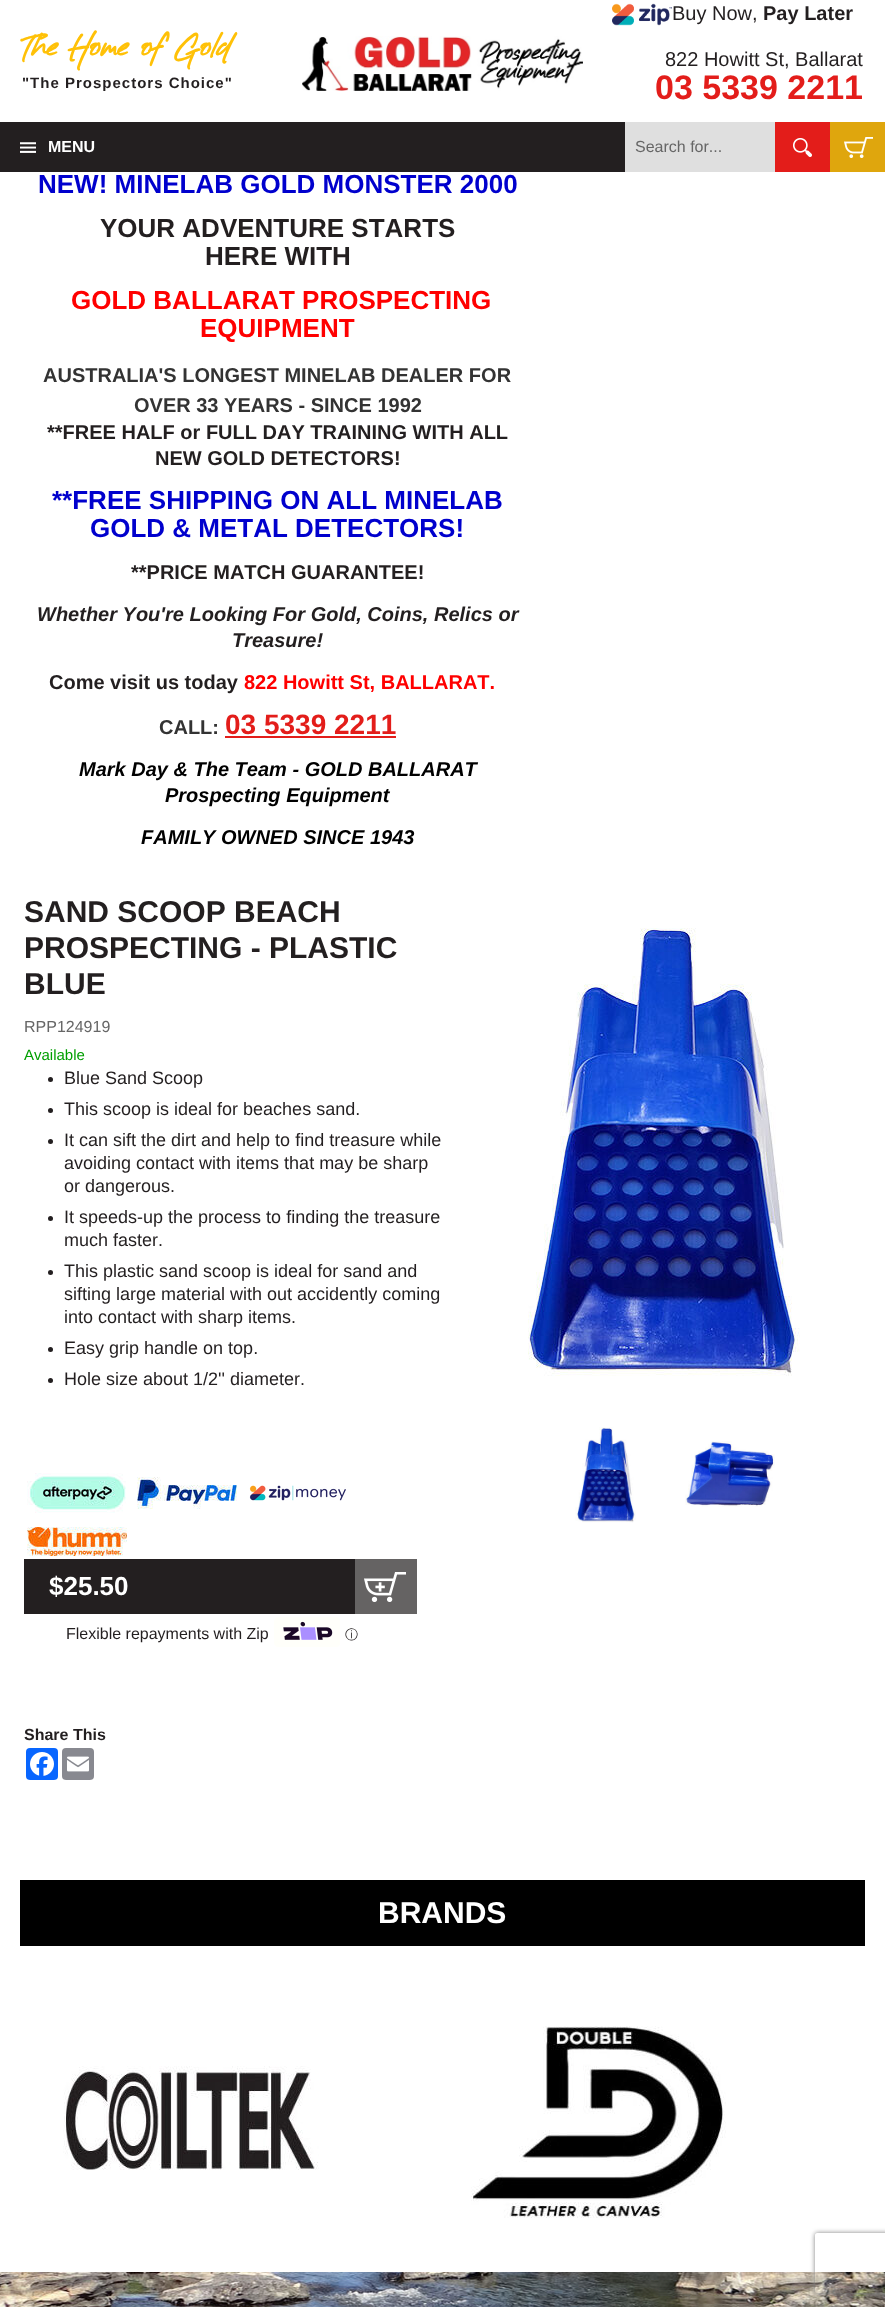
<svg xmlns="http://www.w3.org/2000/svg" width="885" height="2307">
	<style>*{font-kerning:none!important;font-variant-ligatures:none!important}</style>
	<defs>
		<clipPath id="clip1"><path d="M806 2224H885V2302H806ZM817 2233H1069C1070 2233 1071 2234 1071 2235V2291C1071 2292 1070 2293 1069 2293H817C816 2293 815 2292 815 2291V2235C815 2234 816 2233 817 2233Z" clip-rule="evenodd" /></clipPath>
	</defs>
	<rect width="100%" height="100%" fill="#FFFFFF" />
	<text x="22" y="59" font-family="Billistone" font-size="45" font-weight="700" letter-spacing="1" fill="#FFC107">The Home of Gold</text>
	<text x="22" y="88" font-family="Liberation Sans" font-size="15" font-weight="700" letter-spacing="1" fill="#231F20">"The Prospectors Choice"</text>
	<image x="302" y="36" width="281" height="55" href="assets/img1.png" />
	<image x="612" y="3" width="60" height="23" href="assets/img2.png" />
	<text x="672" y="20" font-family="Liberation Sans" font-size="20" fill="#231F20">Buy Now,</text>
	<text x="763" y="20" font-family="Liberation Sans" font-size="20" font-weight="700" fill="#231F20">Pay Later</text>
	<text x="665" y="66" font-family="Liberation Sans" font-size="20" fill="#231F20">822 Howitt St, Ballarat</text>
	<text x="655" y="99" font-family="Liberation Sans" font-size="34" font-weight="700" fill="#E31D1A">03 5339 2211</text>
	<rect x="0" y="122" width="625" height="50" fill="#231F20" />
	<image x="20" y="142" width="16" height="11" href="assets/img3.png" />
	<text x="48" y="152" font-family="Liberation Sans" font-size="16" font-weight="700" fill="#FFFFFF">MENU</text>
	<rect x="625" y="122" width="150" height="50" fill="#DFDFDF" />
	<text x="635" y="152" font-family="Liberation Sans" font-size="16" fill="#666666">Search for...</text>
	<rect x="775" y="122" width="55" height="50" fill="#E31D1A" />
	<image x="793" y="138" width="19" height="19" href="assets/img4.png" />
	<rect x="830" y="122" width="55" height="50" fill="#DFA60D" />
	<image x="844" y="137" width="29" height="21" href="assets/img5.png" />
	<text x="38" y="193" font-family="Liberation Sans" font-size="26" font-weight="700" fill="#0000CD">NEW! MINELAB GOLD MONSTER 2000</text>
	<g font-family="Liberation Sans" font-size="26" font-weight="700" fill="#231F20">
		<text x="100" y="237">YOUR ADVENTURE STARTS</text>
		<text x="205" y="265">HERE WITH</text>
	</g>
	<g font-family="Liberation Sans" font-size="26" font-weight="700" fill="#FF0000">
		<text x="71" y="309">GOLD BALLARAT PROSPECTING</text>
		<text x="200" y="337">EQUIPMENT</text>
	</g>
	<g font-family="Liberation Sans" font-size="20" font-weight="700" fill="#333333">
		<text x="43" y="382">AUSTRALIA'S LONGEST MINELAB DEALER FOR</text>
		<text x="134" y="412">OVER 33 YEARS - SINCE 1992</text>
	</g>
	<g font-family="Liberation Sans" font-size="20" font-weight="700" fill="#231F20">
		<text x="47" y="439">**FREE HALF or FULL DAY TRAINING WITH ALL</text>
		<text x="155" y="465">NEW GOLD DETECTORS!</text>
	</g>
	<g font-family="Liberation Sans" font-size="26" font-weight="700" fill="#0000CD">
		<text x="52" y="509">**FREE SHIPPING ON ALL MINELAB</text>
		<text x="90" y="537">GOLD &amp; METAL DETECTORS!</text>
	</g>
	<text x="131" y="579" font-family="Liberation Sans" font-size="20" font-weight="700" fill="#231F20">**PRICE MATCH GUARANTEE!</text>
	<g font-family="Liberation Sans" font-size="20" font-weight="700" font-style="italic" fill="#231F20">
		<text x="37" y="621">Whether You're Looking For Gold, Coins, Relics or</text>
		<text x="232" y="647">Treasure!</text>
	</g>
	<text x="49" y="689" font-family="Liberation Sans" font-size="20" font-weight="700" fill="#231F20">Come visit us today</text>
	<text x="244" y="689" font-family="Liberation Sans" font-size="20" font-weight="700" fill="#FF0000">822 Howitt St, BALLARAT.</text>
	<text x="159" y="734" font-family="Liberation Sans" font-size="20" font-weight="700" fill="#333333">CALL:</text>
	<text x="225" y="734" font-family="Liberation Sans" font-size="28" font-weight="700" fill="#E31D1A">03 5339 2211</text>
	<rect x="225" y="736" width="171" height="2" fill="#E31D1A" />
	<g font-family="Liberation Sans" font-size="20" font-weight="700" font-style="italic" fill="#000000">
		<text x="79" y="776">Mark Day &amp; The Team - GOLD BALLARAT</text>
		<text x="165" y="802">Prospecting Equipment</text>
		<text x="141" y="844">FAMILY OWNED SINCE 1943</text>
	</g>
	<g font-family="Liberation Sans" font-size="30" font-weight="700" fill="#231F20">
		<text x="24" y="922">SAND SCOOP BEACH</text>
		<text x="24" y="958">PROSPECTING - PLASTIC</text>
		<text x="24" y="994">BLUE</text>
	</g>
	<text x="24" y="1032" font-family="Liberation Sans" font-size="16" fill="#666666">RPP124919</text>
	<text x="24" y="1060" font-family="Liberation Sans" font-size="15" fill="#009F00">Available</text>
	<circle cx="50.5" cy="1079.5" r="2.5" fill="#231F20" />
	<text x="64" y="1084" font-family="Liberation Sans" font-size="18" fill="#231F20">Blue Sand Scoop</text>
	<circle cx="50.5" cy="1110.5" r="2.5" fill="#231F20" />
	<text x="64" y="1115" font-family="Liberation Sans" font-size="18" fill="#231F20">This scoop is ideal for beaches sand.</text>
	<circle cx="50.5" cy="1141.5" r="2.5" fill="#231F20" />
	<g font-family="Liberation Sans" font-size="18" fill="#231F20">
		<text x="64" y="1146">It can sift the dirt and help to find treasure while</text>
		<text x="64" y="1169">avoiding contact with items that may be sharp</text>
		<text x="64" y="1192">or dangerous.</text>
	</g>
	<circle cx="50.5" cy="1218.5" r="2.5" fill="#231F20" />
	<g font-family="Liberation Sans" font-size="18" fill="#231F20">
		<text x="64" y="1223">It speeds-up the process to finding the treasure</text>
		<text x="64" y="1246">much faster.</text>
	</g>
	<circle cx="50.5" cy="1272.5" r="2.5" fill="#231F20" />
	<g font-family="Liberation Sans" font-size="18" fill="#231F20">
		<text x="64" y="1277">This plastic sand scoop is ideal for sand and</text>
		<text x="64" y="1300">sifting large material with out accidently coming</text>
		<text x="64" y="1323">into contact with sharp items.</text>
	</g>
	<circle cx="50.5" cy="1349.5" r="2.5" fill="#231F20" />
	<text x="64" y="1354" font-family="Liberation Sans" font-size="18" fill="#231F20">Easy grip handle on top.</text>
	<circle cx="50.5" cy="1380.5" r="2.5" fill="#231F20" />
	<text x="64" y="1385" font-family="Liberation Sans" font-size="18" fill="#231F20">Hole size about 1/2'' diameter.</text>
	<image x="27" y="1473" width="99" height="40" href="assets/img6.png" />
	<image x="137" y="1477" width="100" height="32" href="assets/img7.png" />
	<image x="249" y="1485" width="97" height="16" href="assets/img8.png" />
	<image x="27" y="1527" width="100" height="29" href="assets/img9.png" />
	<rect x="24" y="1559" width="331" height="55" fill="#231F20" />
	<text x="49" y="1595" font-family="Liberation Sans" font-size="26" font-weight="700" fill="#FFFFFF">$25.50</text>
	<rect x="355" y="1559" width="62" height="55" fill="#656363" />
	<image x="364" y="1572" width="42" height="30" href="assets/img10.png" />
	<text x="66" y="1639" font-family="Liberation Sans" font-size="16" fill="#231F20">Flexible repayments with Zip</text>
	<image x="274" y="1617" width="66" height="30" href="assets/img11.png" />
	<text x="345" y="1639" font-family="WenQuanYi Zen Hei" font-size="13" font-weight="500" fill="#231F20">ⓘ</text>
	<image x="528" y="928" width="272" height="448" href="assets/img12.png" />
	<image x="575" y="1427" width="61" height="96" href="assets/img13.png" />
	<image x="685" y="1441" width="90" height="66" href="assets/img14.png" />
	<text x="24" y="1740" font-family="Liberation Sans" font-size="16" font-weight="700" fill="#231F20">Share This</text>
	<rect x="26" y="1748" width="32" height="32" rx="4" fill="#0866FF" />
	<image x="30" y="1752" width="24" height="24" href="assets/img15.png" />
	<rect x="62" y="1748" width="32" height="32" rx="4" fill="#888990" />
	<image x="67" y="1756" width="22" height="16" href="assets/img16.png" />
	<rect x="20" y="1880" width="845" height="66" fill="#000000" />
	<text x="378" y="1923" font-family="Liberation Sans" font-size="30" font-weight="700" fill="#FFFFFF">BRANDS</text>
	<image x="63" y="2066" width="256" height="104" href="assets/img17.png" />
	<image x="471" y="2026" width="255" height="192" href="assets/img18.png" />
	<image x="0" y="2272" width="885" height="35" href="assets/img19.png" />
	<g clip-path="url(#clip1)">
		<rect x="815" y="2233" width="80" height="60" rx="2" fill="#808080" filter="blur(2.5px)" />
	</g>
</svg>
